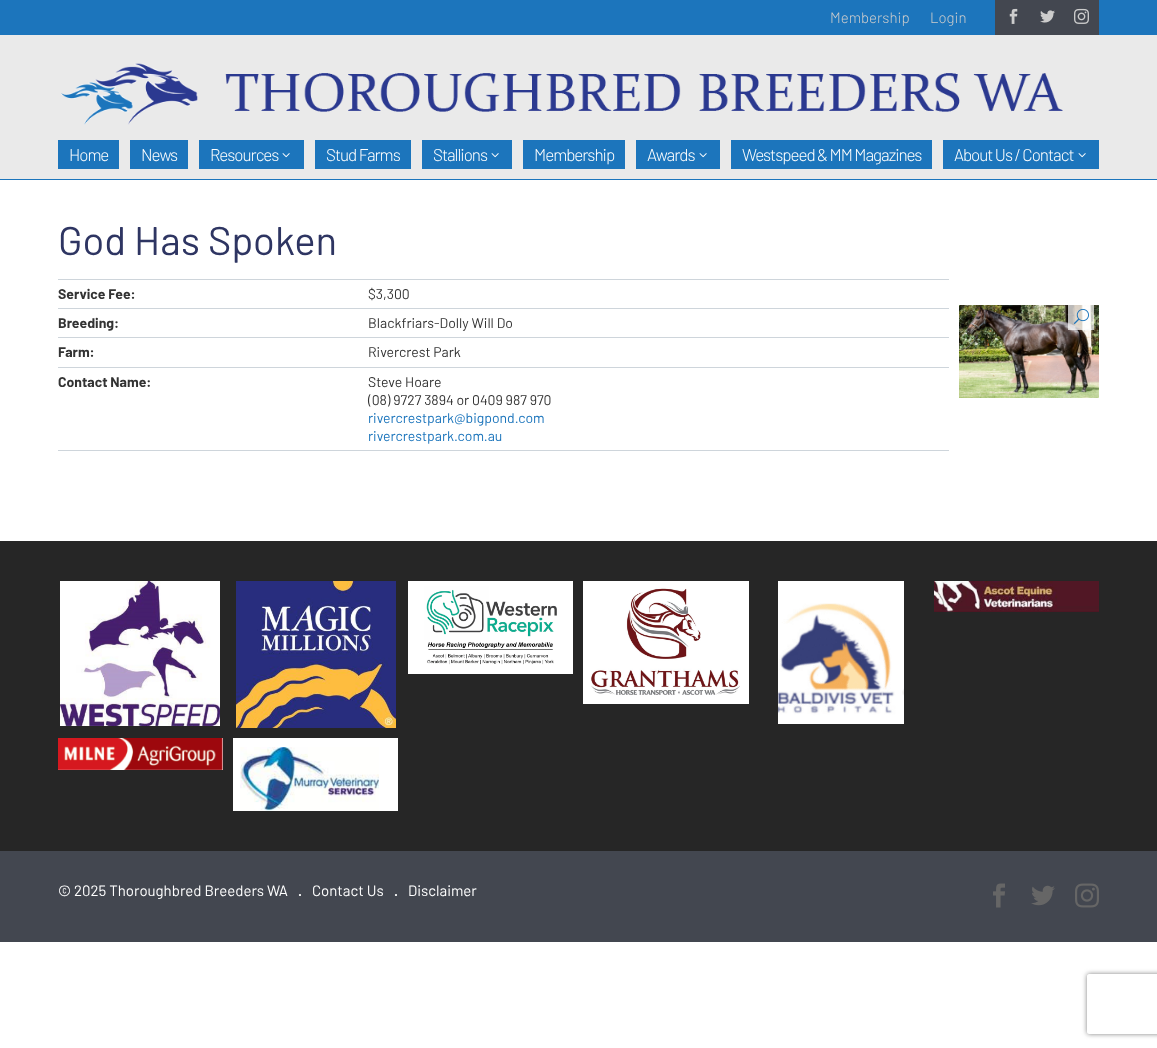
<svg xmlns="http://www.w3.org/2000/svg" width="1157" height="1048">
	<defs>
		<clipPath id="clip1"><path d="M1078 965H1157V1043H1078ZM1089 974H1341C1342 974 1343 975 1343 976V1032C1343 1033 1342 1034 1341 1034H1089C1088 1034 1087 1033 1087 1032V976C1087 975 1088 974 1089 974Z" clip-rule="evenodd" /></clipPath>
	</defs>
	<rect width="100%" height="100%" fill="#FFFFFF" />
	<rect x="0" y="0" width="1157" height="35" fill="#1C75BC" />
	<g font-family="Barlow" font-size="15" font-weight="300" fill="#CCCCCC">
		<text x="830" y="23">Membership</text>
		<text x="930" y="23">Login</text>
	</g>
	<rect x="995" y="0" width="104" height="35" fill="#434750" />
	<image x="1009" y="8" width="9" height="16" href="assets/img1.png" />
	<image x="1040" y="10" width="15" height="13" href="assets/img2.png" />
	<image x="1074" y="8" width="15" height="16" href="assets/img3.png" />
	<rect x="0" y="35" width="1157" height="144" fill="#EAEAEA" />
	<rect x="0" y="179" width="1157" height="1" fill="#1C75BC" />
	<image x="61" y="63" width="1002" height="62" href="assets/img4.png" />
	<rect x="58" y="140" width="61" height="29" fill="#1C75BC" />
	<text x="69" y="161" font-family="Barlow" font-size="17" font-weight="300" letter-spacing="-1" fill="#FFFFFF">Home</text>
	<rect x="130" y="140" width="58" height="29" fill="#1C75BC" />
	<text x="141" y="161" font-family="Barlow" font-size="17" font-weight="300" letter-spacing="-1" fill="#FFFFFF">News</text>
	<rect x="199" y="140" width="105" height="29" fill="#1C75BC" />
	<text x="210" y="161" font-family="Barlow" font-size="17" font-weight="300" letter-spacing="-1" fill="#FFFFFF">Resources</text>
	<image x="282" y="153" width="8" height="5" href="assets/img5.png" />
	<rect x="315" y="140" width="96" height="29" fill="#1C75BC" />
	<text x="326" y="161" font-family="Barlow" font-size="17" font-weight="300" letter-spacing="-1" fill="#FFFFFF">Stud Farms</text>
	<rect x="422" y="140" width="90" height="29" fill="#1C75BC" />
	<text x="433" y="161" font-family="Barlow" font-size="17" font-weight="300" letter-spacing="-1" fill="#FFFFFF">Stallions</text>
	<image x="491" y="153" width="8" height="5" href="assets/img5.png" />
	<rect x="523" y="140" width="102" height="29" fill="#1C75BC" />
	<text x="534" y="161" font-family="Barlow" font-size="17" font-weight="300" letter-spacing="-1" fill="#FFFFFF">Membership</text>
	<rect x="636" y="140" width="84" height="29" fill="#1C75BC" />
	<text x="647" y="161" font-family="Barlow" font-size="17" font-weight="300" letter-spacing="-1" fill="#FFFFFF">Awards</text>
	<image x="699" y="153" width="8" height="5" href="assets/img5.png" />
	<rect x="731" y="140" width="201" height="29" fill="#1C75BC" />
	<text x="742" y="161" font-family="Barlow" font-size="17" font-weight="300" letter-spacing="-1" fill="#FFFFFF">Westspeed &amp; MM Magazines</text>
	<rect x="943" y="140" width="156" height="29" fill="#1C75BC" />
	<text x="954" y="161" font-family="Barlow" font-size="17" font-weight="300" letter-spacing="-1" fill="#FFFFFF">About Us / Contact</text>
	<image x="1078" y="153" width="8" height="5" href="assets/img5.png" />
	<text x="58" y="255" font-family="Barlow" font-size="40" fill="#2E3562">God Has Spoken</text>
	<rect x="58" y="450" width="891" height="1" fill="#CED5DB" />
	<rect x="58" y="279" width="891" height="1" fill="#CED5DB" />
	<text x="58" y="299" font-family="Barlow" font-size="14" font-weight="700" fill="#333333">Service Fee:</text>
	<text x="368" y="299" font-family="Barlow" font-size="14" fill="#333333">$3,300</text>
	<rect x="58" y="308" width="891" height="1" fill="#CED5DB" />
	<text x="58" y="328" font-family="Barlow" font-size="14" font-weight="700" fill="#333333">Breeding:</text>
	<text x="368" y="328" font-family="Barlow" font-size="14" fill="#333333">Blackfriars-Dolly Will Do</text>
	<rect x="58" y="337" width="891" height="1" fill="#CED5DB" />
	<text x="58" y="357" font-family="Barlow" font-size="14" font-weight="700" fill="#333333">Farm:</text>
	<text x="368" y="357" font-family="Barlow" font-size="14" fill="#333333">Rivercrest Park</text>
	<rect x="58" y="367" width="891" height="1" fill="#CED5DB" />
	<text x="58" y="387" font-family="Barlow" font-size="14" font-weight="700" fill="#333333">Contact Name:</text>
	<g font-family="Barlow" font-size="14" fill="#333333">
		<text x="368" y="387">Steve Hoare</text>
		<text x="368" y="405">(08) 9727 3894 or 0409 987 970</text>
	</g>
	<g font-family="Barlow" font-size="14" fill="#1C75BC">
		<text x="368" y="423">rivercrestpark@bigpond.com</text>
		<text x="368" y="441">rivercrestpark.com.au</text>
	</g>
	<image x="959" y="305" width="140" height="93" href="assets/img6.png" />
	<rect x="1068" y="305" width="26" height="25" fill="#FFFFFF" fill-opacity="0.7" />
	<image x="1074" y="308" width="15" height="16" href="assets/img7.png" />
	<rect x="0" y="541" width="1157" height="310" fill="#262626" />
	<image x="60" y="581" width="160" height="145" href="assets/img8.png" />
	<image x="236" y="581" width="160" height="147" href="assets/img9.png" />
	<image x="408" y="581" width="165" height="93" href="assets/img10.png" />
	<image x="583" y="581" width="166" height="123" href="assets/img11.png" />
	<image x="778" y="581" width="126" height="143" href="assets/img12.png" />
	<image x="934" y="581" width="165" height="31" href="assets/img13.png" />
	<image x="58" y="738" width="165" height="32" href="assets/img14.png" />
	<image x="233" y="738" width="165" height="73" href="assets/img15.png" />
	<rect x="0" y="851" width="1157" height="91" fill="#434750" />
	<text x="58" y="896" font-family="Barlow" font-size="15" fill="#FFFFFF">© 2025 Thoroughbred Breeders WA</text>
	<text x="298" y="896" font-family="Barlow" font-size="15" font-weight="600" fill="#FFFFFF">.</text>
	<text x="312" y="896" font-family="Barlow" font-size="15" fill="#FFFFFF">Contact Us</text>
	<text x="394" y="896" font-family="Barlow" font-size="15" font-weight="600" fill="#FFFFFF">.</text>
	<text x="408" y="896" font-family="Barlow" font-size="15" fill="#FFFFFF">Disclaimer</text>
	<image x="993" y="883" width="12" height="25" href="assets/img16.png" />
	<image x="1031" y="885" width="24" height="21" href="assets/img17.png" />
	<image x="1075" y="883" width="24" height="25" href="assets/img18.png" />
	<g clip-path="url(#clip1)">
		<rect x="1087" y="974" width="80" height="60" rx="2" fill="#808080" filter="blur(2.5px)" />
	</g>
</svg>
